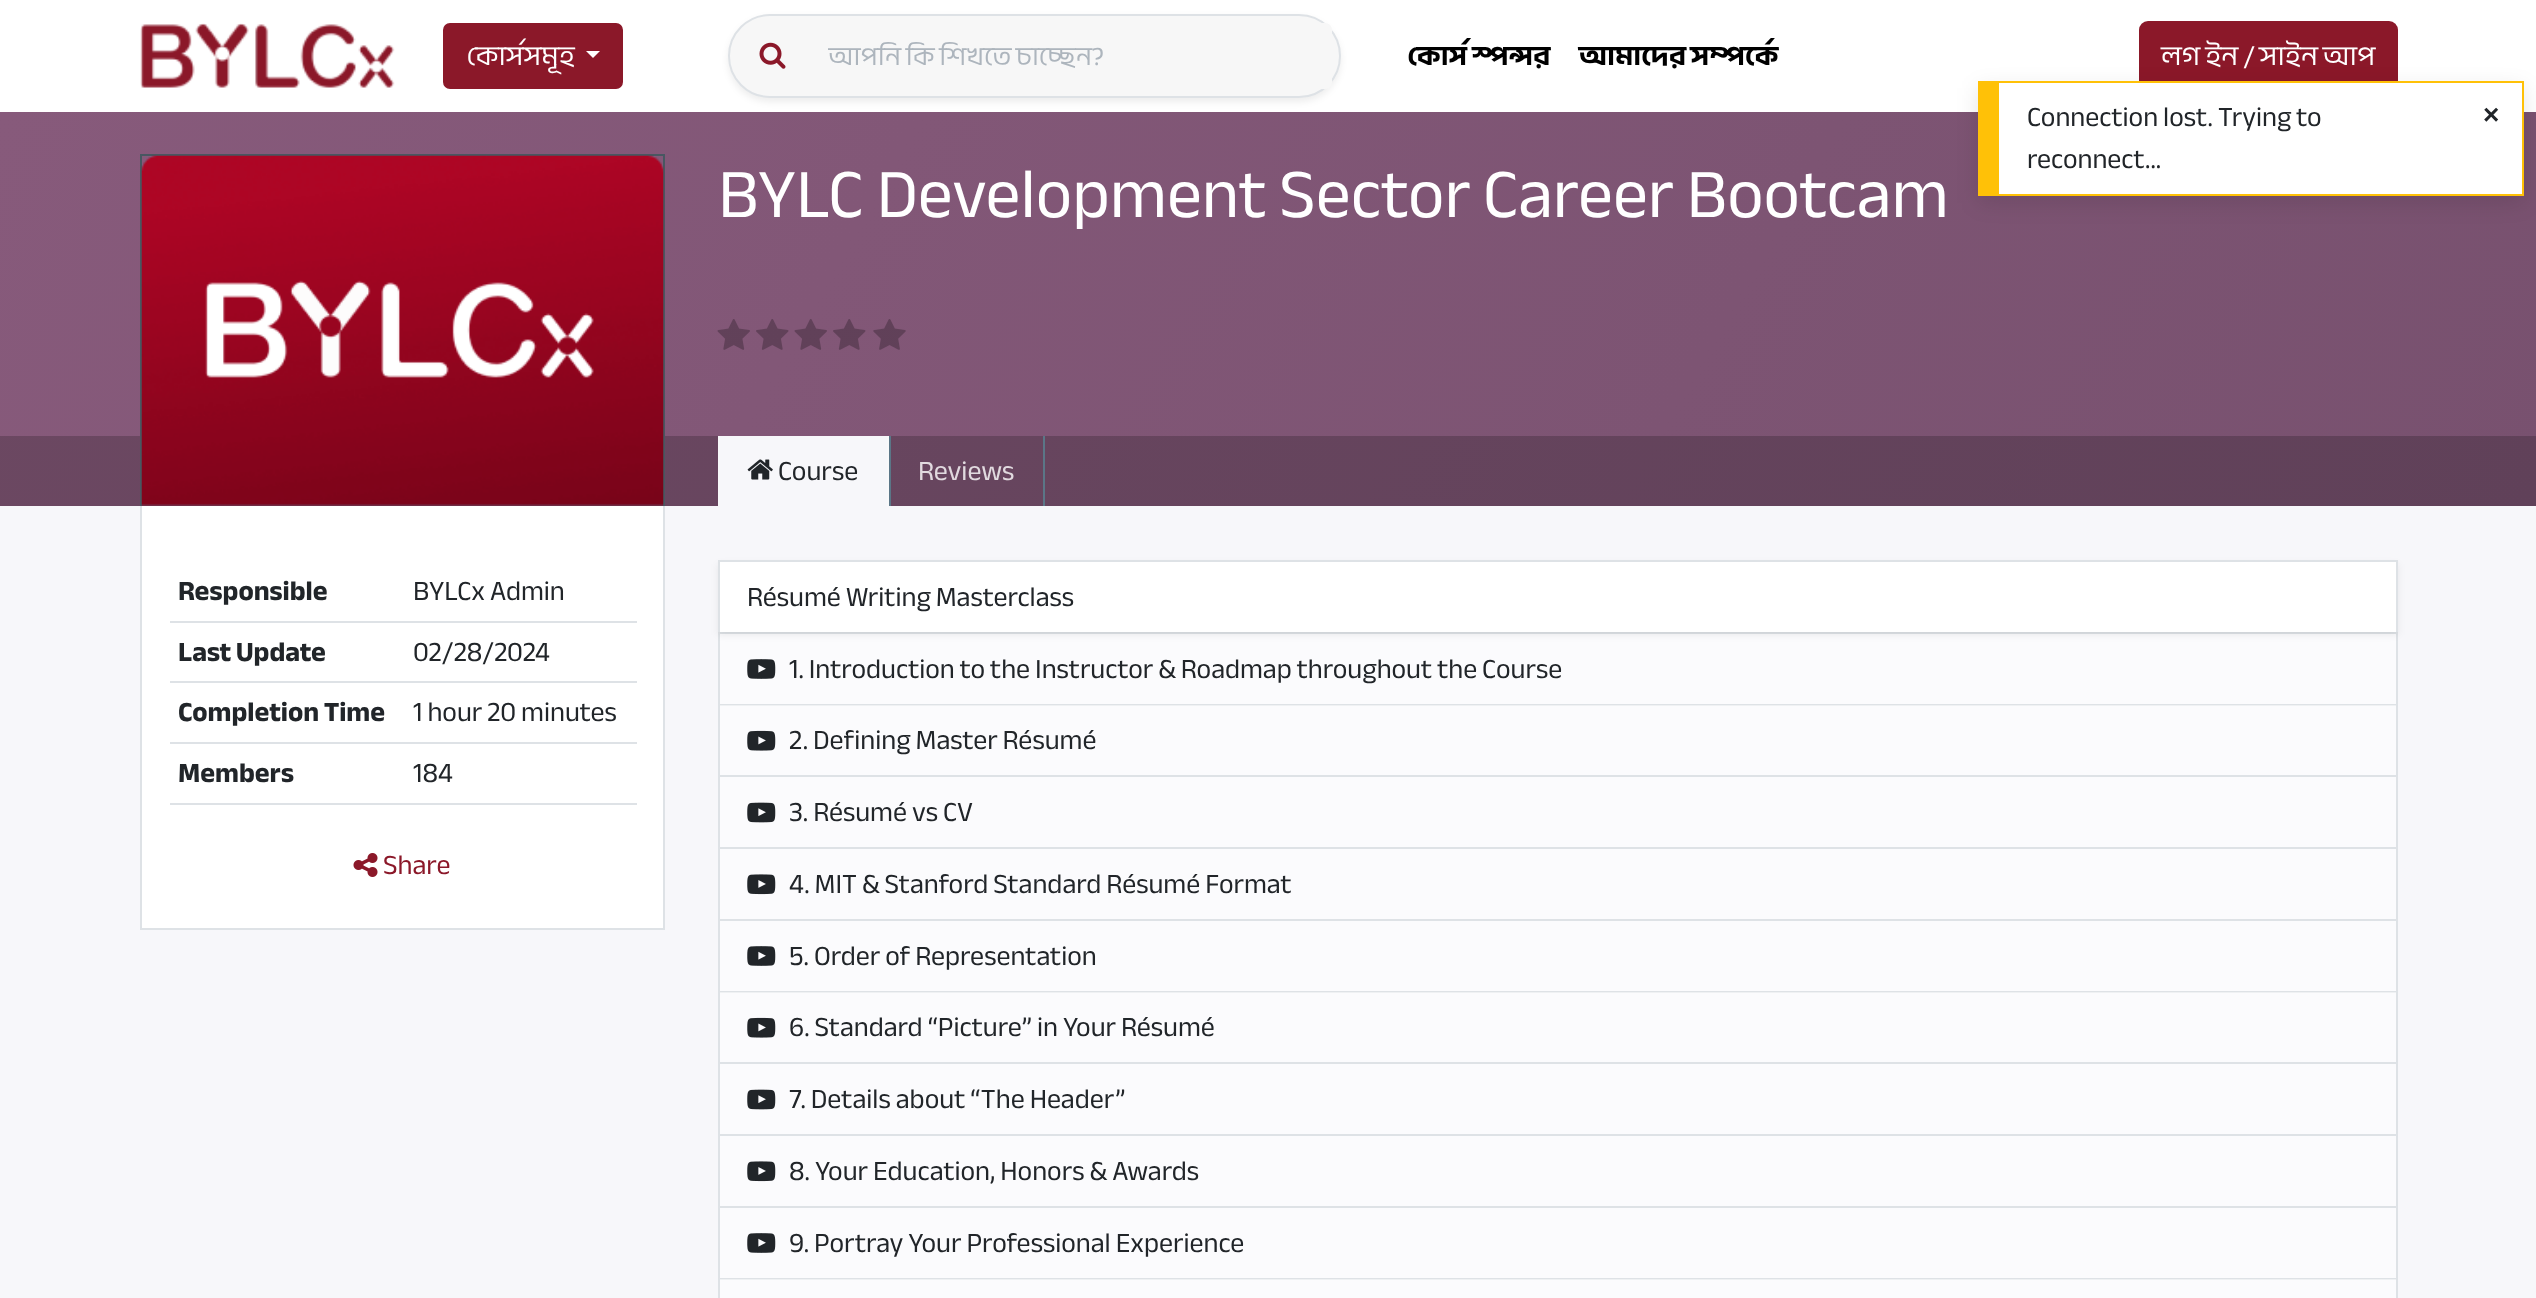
<svg xmlns="http://www.w3.org/2000/svg" width="2536" height="1298">
	<defs>
		<linearGradient id="g1" gradientUnits="userSpaceOnUse" x1="232" y1="-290" x2="2306" y2="907"><stop offset="0" stop-color="#875A7B" /><stop offset="1" stop-color="#78516F" /></linearGradient>
		<clipPath id="clip1"><path d="M835 33H1311V79H835C831 79 828 76 828 72V40C828 36 831 33 835 33Z" /></clipPath>
		<linearGradient id="g2" gradientUnits="userSpaceOnUse" x1="232" y1="-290" x2="2306" y2="907"><stop offset="0" stop-color="#6C4862" /><stop offset="1" stop-color="#604159" /></linearGradient>
	</defs>
	<rect width="100%" height="100%" fill="#FFFFFF" />
	<image x="140" y="23" width="255" height="65" href="assets/img1.png" />
	<rect x="444" y="24" width="178" height="64" rx="6" fill="#8B1829" stroke="#8B1829" stroke-width="2" />
	<text x="466" y="65" font-family="Anek Bangla" font-size="28" fill="#FFFFFF">কোর্সসমূহ</text>
	<path d="M586 51H600L593 58Z" fill="#FFFFFF" />
	<rect x="0" y="112" width="2536" height="324" fill="url(#g1)" />
	<rect x="728" y="18" width="613" height="84" rx="42" fill="#000000" fill-opacity="0.07" filter="blur(3.5px)" />
	<rect x="729" y="15" width="611" height="82" rx="41" fill="#F7F7F7" stroke="#DEE2E6" stroke-width="2" />
	<image x="759" y="42" width="27" height="27" href="assets/img2.png" />
	<path d="M807 23H1325C1329 23 1332 26 1332 30V82C1332 86 1329 89 1325 89H807Z" fill="#F7F7F7" />
	<g clip-path="url(#clip1)">
		<text x="828" y="65" font-family="Anek Bangla" font-size="26.6" fill="#ADB5BD">আপনি কি শিখতে চাচ্ছেন?</text>
	</g>
	<g font-family="Anek Bangla" font-size="28" font-weight="700" fill="#000000">
		<text x="1407" y="65">কোর্স স্পন্সর</text>
		<text x="1579" y="65">আমাদের সম্পর্কে</text>
	</g>
	<rect x="2139" y="21" width="259" height="70" rx="9" fill="#8B1829" />
	<text x="2161" y="65" font-family="Anek Bangla" font-size="28" fill="#FFFFFF">লগ ইন / সাইন আপ</text>
	<rect x="0" y="506" width="2536" height="792" fill="#F7F7FA" />
	<rect x="720" y="1280" width="1676" height="18" fill="#FBFBFD" />
	<rect x="720" y="993" width="1676" height="69" fill="#FBFBFD" />
	<rect x="720" y="706" width="1676" height="69" fill="#FBFBFD" />
	<rect x="0" y="436" width="2536" height="70" fill="url(#g2)" />
	<rect x="140" y="154" width="525" height="2" fill="#485761" />
	<rect x="663" y="154" width="2" height="352" fill="#485761" />
	<rect x="140" y="154" width="2" height="352" fill="#485761" />
	<image x="141" y="155" width="523" height="351" href="assets/img3.png" />
	<text x="718" y="217" font-family="Anek Bangla" font-size="70" fill="#FFFFFF">BYLC Development Sector Career Bootcam</text>
	<image x="717" y="319" width="33" height="31" href="assets/img4.png" />
	<image x="756" y="319" width="33" height="31" href="assets/img5.png" />
	<image x="794" y="319" width="33" height="31" href="assets/img4.png" />
	<image x="833" y="319" width="33" height="31" href="assets/img5.png" />
	<image x="873" y="319" width="33" height="31" href="assets/img6.png" />
	<rect x="142" y="506" width="521" height="422" fill="#FFFFFF" />
	<rect x="663" y="506" width="2" height="423" fill="#DEE2E6" />
	<rect x="140" y="928" width="525" height="2" fill="#DEE2E6" />
	<rect x="140" y="506" width="2" height="423" fill="#DEE2E6" />
	<text x="178" y="600" font-family="Anek Bangla" font-size="28" font-weight="700" fill="#212529">Responsible</text>
	<rect x="170" y="621" width="467" height="2" fill="#DEE2E6" />
	<text x="413" y="600" font-family="Anek Bangla" font-size="28" fill="#212529">BYLCx Admin</text>
	<text x="178" y="661" font-family="Anek Bangla" font-size="28" font-weight="700" fill="#212529">Last Update</text>
	<rect x="170" y="681" width="467" height="2" fill="#DEE2E6" />
	<text x="413" y="661" font-family="Anek Bangla" font-size="28" fill="#212529">02/28/2024</text>
	<text x="178" y="721" font-family="Anek Bangla" font-size="28" font-weight="700" fill="#212529">Completion Time</text>
	<rect x="170" y="742" width="467" height="2" fill="#DEE2E6" />
	<text x="413" y="721" font-family="Anek Bangla" font-size="28" fill="#212529">1 hour 20 minutes</text>
	<text x="178" y="782" font-family="Anek Bangla" font-size="28" font-weight="700" fill="#212529">Members</text>
	<rect x="170" y="803" width="467" height="2" fill="#DEE2E6" />
	<text x="413" y="782" font-family="Anek Bangla" font-size="28" fill="#212529">184</text>
	<image x="353" y="853" width="25" height="24" href="assets/img7.png" />
	<text x="383" y="874" font-family="Anek Bangla" font-size="28" fill="#8B1829">Share</text>
	<rect x="720" y="436" width="167" height="70" fill="#F7F7FA" />
	<rect x="887" y="436" width="2" height="70" fill="#F8F9FA" />
	<rect x="718" y="436" width="2" height="70" fill="#F8F9FA" />
	<image x="747" y="459" width="26" height="21" href="assets/img8.png" />
	<text x="778" y="480" font-family="Anek Bangla" font-size="28" fill="#212529">Course</text>
	<rect x="1043" y="436" width="2" height="70" fill="#5B7687" />
	<rect x="889" y="436" width="2" height="70" fill="#5B7687" />
	<text x="918" y="480" font-family="Anek Bangla" font-size="28" fill="#E1DADF">Reviews</text>
	<rect x="718" y="632" width="1680" height="2" fill="#DEE2E6" />
	<rect x="720" y="634" width="1676" height="70" fill="#FBFBFD" />
	<rect x="2396" y="634" width="2" height="71" fill="#DEE2E6" />
	<rect x="718" y="704" width="1680" height="1" fill="#DEE2E6" />
	<rect x="718" y="634" width="2" height="71" fill="#DEE2E6" />
	<rect x="718" y="564" width="1680" height="71" fill="#000000" fill-opacity="0.07" filter="blur(3.5px)" />
	<rect x="720" y="562" width="1676" height="70" fill="#FFFFFF" />
	<rect x="718" y="560" width="1680" height="2" fill="#DEE2E6" />
	<rect x="2396" y="560" width="2" height="72" fill="#DEE2E6" />
	<rect x="718" y="560" width="2" height="72" fill="#DEE2E6" />
	<text x="747" y="606" font-family="Anek Bangla" font-size="28" fill="#212529">Résumé Writing Masterclass</text>
	<rect x="718" y="705" width="1680" height="1" fill="#EFF1F3" />
	<image x="747" y="659" width="29" height="20" href="assets/img9.png" />
	<text x="789" y="678" font-family="Anek Bangla" font-size="28" fill="#212529">1. Introduction to the Instructor &amp; Roadmap throughout the Course</text>
	<rect x="2396" y="705" width="2" height="287" fill="#DEE2E6" />
	<rect x="718" y="775" width="1680" height="2" fill="#DEE2E6" />
	<rect x="718" y="705" width="2" height="72" fill="#DEE2E6" />
	<image x="747" y="730" width="29" height="21" href="assets/img10.png" />
	<text x="789" y="749" font-family="Anek Bangla" font-size="28" fill="#212529">2. Defining Master Résumé</text>
	<rect x="720" y="777" width="1676" height="70" fill="#FBFBFD" />
	<rect x="718" y="847" width="1680" height="2" fill="#DEE2E6" />
	<rect x="718" y="777" width="2" height="72" fill="#DEE2E6" />
	<image x="747" y="802" width="29" height="21" href="assets/img11.png" />
	<text x="789" y="821" font-family="Anek Bangla" font-size="28" fill="#212529">3. Résumé vs CV</text>
	<rect x="720" y="849" width="1676" height="70" fill="#FBFBFD" />
	<rect x="718" y="919" width="1680" height="2" fill="#DEE2E6" />
	<rect x="718" y="849" width="2" height="72" fill="#DEE2E6" />
	<image x="747" y="874" width="29" height="21" href="assets/img12.png" />
	<text x="789" y="893" font-family="Anek Bangla" font-size="28" fill="#212529">4. MIT &amp; Stanford Standard Résumé Format</text>
	<rect x="720" y="921" width="1676" height="70" fill="#FBFBFD" />
	<rect x="718" y="991" width="1680" height="1" fill="#DEE2E6" />
	<rect x="718" y="992" width="1680" height="1" fill="#EFF1F3" />
	<rect x="718" y="921" width="2" height="71" fill="#DEE2E6" />
	<image x="747" y="946" width="29" height="20" href="assets/img9.png" />
	<text x="789" y="965" font-family="Anek Bangla" font-size="28" fill="#212529">5. Order of Representation</text>
	<rect x="2396" y="992" width="2" height="287" fill="#DEE2E6" />
	<rect x="718" y="1062" width="1680" height="2" fill="#DEE2E6" />
	<rect x="718" y="992" width="2" height="72" fill="#DEE2E6" />
	<image x="747" y="1017" width="29" height="21" href="assets/img10.png" />
	<text x="789" y="1036" font-family="Anek Bangla" font-size="28" fill="#212529">6. Standard “Picture” in Your Résumé</text>
	<rect x="720" y="1064" width="1676" height="70" fill="#FBFBFD" />
	<rect x="718" y="1134" width="1680" height="2" fill="#DEE2E6" />
	<rect x="718" y="1064" width="2" height="72" fill="#DEE2E6" />
	<image x="747" y="1089" width="29" height="21" href="assets/img11.png" />
	<text x="789" y="1108" font-family="Anek Bangla" font-size="28" fill="#212529">7. Details about “The Header”</text>
	<rect x="720" y="1136" width="1676" height="70" fill="#FBFBFD" />
	<rect x="718" y="1206" width="1680" height="2" fill="#DEE2E6" />
	<rect x="718" y="1136" width="2" height="72" fill="#DEE2E6" />
	<image x="747" y="1161" width="29" height="21" href="assets/img12.png" />
	<text x="789" y="1180" font-family="Anek Bangla" font-size="28" fill="#212529">8. Your Education, Honors &amp; Awards</text>
	<rect x="720" y="1208" width="1676" height="70" fill="#FBFBFD" />
	<rect x="718" y="1278" width="1680" height="1" fill="#DEE2E6" />
	<rect x="718" y="1279" width="1680" height="1" fill="#EFF1F3" />
	<rect x="718" y="1208" width="2" height="90" fill="#DEE2E6" />
	<image x="747" y="1233" width="29" height="20" href="assets/img9.png" />
	<text x="789" y="1252" font-family="Anek Bangla" font-size="28" fill="#212529">9. Portray Your Professional Experience</text>
	<rect x="2396" y="1279" width="2" height="19" fill="#DEE2E6" />
	<rect x="1978" y="88" width="546" height="115" fill="#000000" fill-opacity="0.1" filter="blur(10.5px)" />
	<rect x="1999" y="83" width="523" height="111" fill="#FFFFFF" />
	<rect x="1999" y="81" width="525" height="2" fill="#FFC107" />
	<rect x="2522" y="81" width="2" height="115" fill="#FFC107" />
	<rect x="1999" y="194" width="525" height="2" fill="#FFC107" />
	<rect x="1978" y="81" width="21" height="115" fill="#FFC107" />
	<g font-family="Anek Bangla" font-size="28" fill="#212529">
		<text x="2027" y="126">Connection lost. Trying to</text>
		<text x="2027" y="168">reconnect...</text>
	</g>
	<text x="2483" y="124" font-family="Liberation Sans" font-size="28" font-weight="700" fill="#212529">×</text>
</svg>
